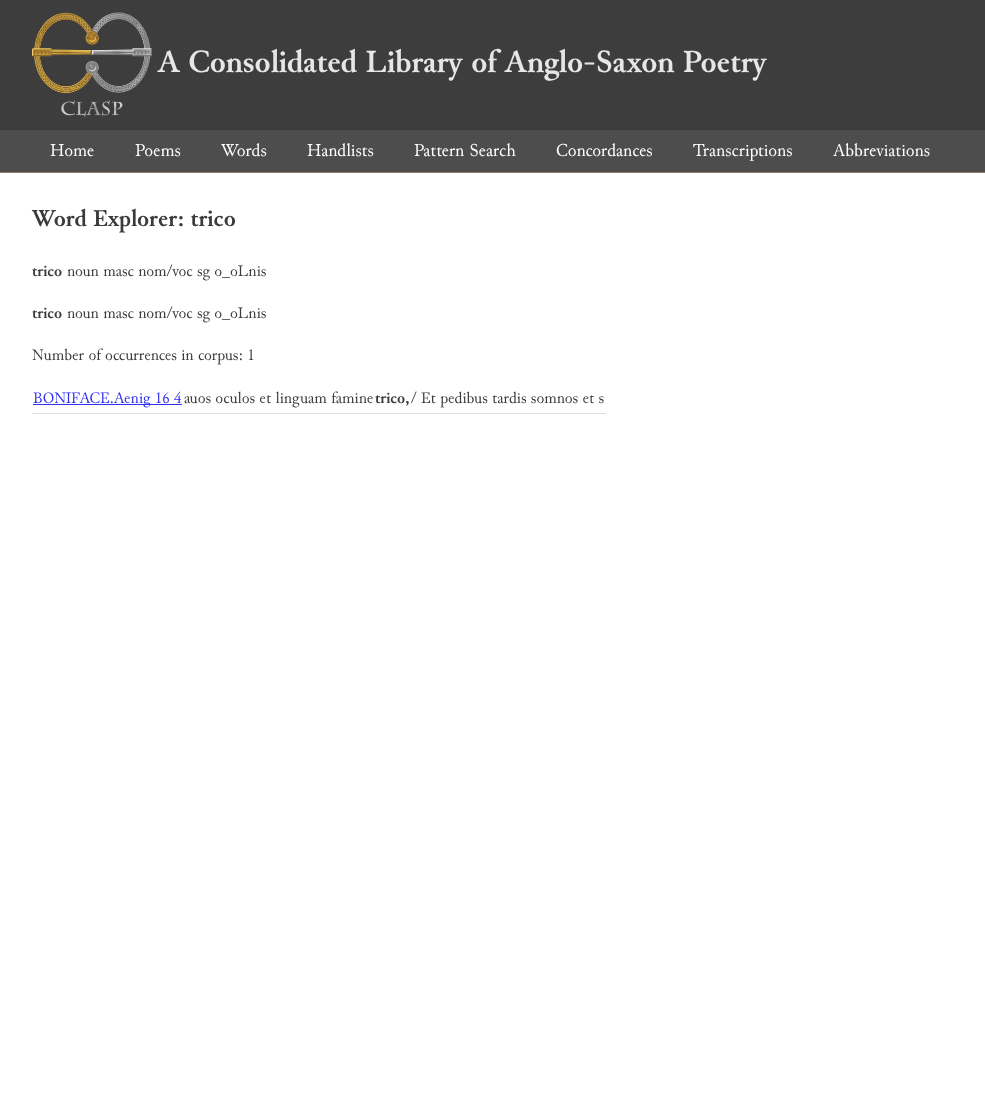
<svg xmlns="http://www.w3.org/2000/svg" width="985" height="1104">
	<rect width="100%" height="100%" fill="#FFFFFF" />
	<rect x="0" y="0" width="985" height="130" fill="#3D3D3D" />
	<image x="32" y="12" width="120" height="106" href="assets/img1.png" />
	<text x="158" y="72" font-family="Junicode" font-size="32" font-weight="700" fill="#E6E6E6">A Consolidated Library of Anglo-Saxon Poetry</text>
	<rect x="0" y="130" width="985" height="42" fill="#4D4D4D" />
	<rect x="0" y="172" width="985" height="1" fill="#9C7E68" />
	<g font-family="Junicode" font-size="18" fill="#FFFFFF">
		<text x="50" y="156">Home</text>
		<text x="135" y="156">Poems</text>
		<text x="221" y="156">Words</text>
		<text x="307" y="156">Handlists</text>
		<text x="414" y="156">Pattern Search</text>
		<text x="556" y="156">Concordances</text>
		<text x="693" y="156">Transcriptions</text>
		<text x="833" y="156">Abbreviations</text>
	</g>
	<text x="32" y="226" font-family="Junicode" font-size="24" font-weight="700" fill="#3B3B3B">Word Explorer: trico</text>
	<text x="32" y="276" font-family="Junicode" font-size="16" font-weight="700" fill="#3B3B3B">trico</text>
	<text x="67" y="276" font-family="Junicode" font-size="16" fill="#3B3B3B">noun masc nom/voc sg o_oLnis</text>
	<text x="32" y="318" font-family="Junicode" font-size="16" font-weight="700" fill="#3B3B3B">trico</text>
	<g font-family="Junicode" font-size="16" fill="#3B3B3B">
		<text x="67" y="318">noun masc nom/voc sg o_oLnis</text>
		<text x="32" y="360">Number of occurrences in corpus: 1</text>
	</g>
	<rect x="33" y="404" width="149" height="1" fill="#3030F0" />
	<text x="33" y="403" font-family="Junicode" font-size="16" fill="#3030F0">BONIFACE.Aenig 16 4</text>
	<text x="184" y="403" font-family="Junicode" font-size="16" fill="#3B3B3B">auos oculos et linguam famine</text>
	<text x="375" y="403" font-family="Junicode" font-size="16" font-weight="700" fill="#3B3B3B">trico,</text>
	<rect x="32" y="413" width="574" height="1" fill="#DDDDDD" />
	<text x="411" y="403" font-family="Junicode" font-size="16" fill="#3B3B3B">/ Et pedibus tardis somnos et s</text>
</svg>
